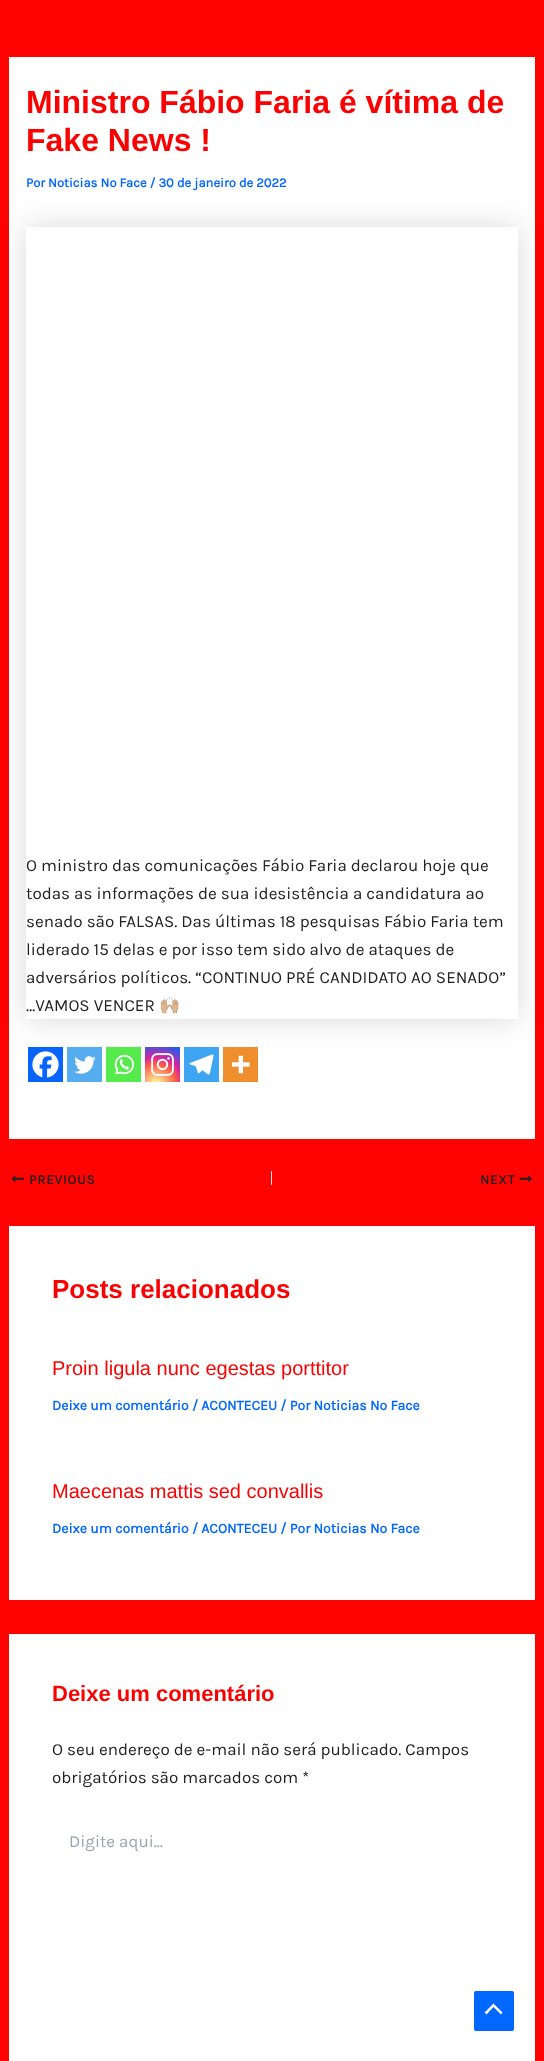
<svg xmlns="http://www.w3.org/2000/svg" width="544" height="2061">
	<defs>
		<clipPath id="clip1"><path d="M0 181H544V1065H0ZM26 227H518V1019H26Z" clip-rule="evenodd" /></clipPath>
		<radialGradient id="g1" gradientUnits="userSpaceOnUse" cx="156" cy="1084" r="45"><stop offset="0" stop-color="#FDF497" /><stop offset="0.05" stop-color="#FDF497" /><stop offset="0.45" stop-color="#FD5949" /><stop offset="0.6" stop-color="#D6249F" /><stop offset="0.9" stop-color="#285AEB" /></radialGradient>
	</defs>
	<rect width="100%" height="100%" fill="#FF0202" />
	<rect x="9" y="57" width="526" height="1082" fill="#FFFFFF" />
	<g font-family="Liberation Sans" font-size="32" font-weight="700" fill="#FA0202">
		<text x="26" y="113">Ministro Fábio Faria é vítima de</text>
		<text x="26" y="151">Fake News !</text>
	</g>
	<g clip-path="url(#clip1)">
		<rect x="26" y="227" width="492" height="792" fill="#000000" fill-opacity="0.15" filter="blur(15px)" />
	</g>
	<text x="26" y="187" font-family="Karla" font-size="13" font-weight="700" fill="#0067FF">Por Noticias No Face / 30 de janeiro de 2022</text>
	<g font-family="Karla" font-size="17" fill="#222222">
		<text x="26" y="871">O ministro das comunicações Fábio Faria declarou hoje que</text>
		<text x="26" y="899">todas as informações de sua idesistência a candidatura ao</text>
		<text x="26" y="927">senado são FALSAS. Das últimas 18 pesquisas Fábio Faria tem</text>
		<text x="26" y="955">liderado 15 delas e por isso tem sido alvo de ataques de</text>
		<text x="26" y="983">adversários políticos. “CONTINUO PRÉ CANDIDATO AO SENADO”</text>
		<text x="26" y="1011">…VAMOS VENCER</text>
	</g>
	<text x="159" y="1011" font-family="Noto Color Emoji" font-size="17" fill="#222222">🙌🏼</text>
	<rect x="28" y="1047" width="35" height="35" fill="#0765FE" />
	<image x="32" y="1051" width="27" height="27" href="assets/img1.png" />
	<rect x="67" y="1047" width="35" height="35" fill="#55ACEE" />
	<image x="74" y="1056" width="22" height="18" href="assets/img2.png" />
	<rect x="106" y="1047" width="35" height="35" fill="#55EB4C" />
	<image x="114" y="1054" width="20" height="21" href="assets/img3.png" />
	<rect x="145" y="1047" width="35" height="35" fill="url(#g1)" />
	<image x="151" y="1053" width="23" height="23" href="assets/img4.png" />
	<rect x="184" y="1047" width="35" height="35" fill="#3DA5F1" />
	<image x="189" y="1054" width="25" height="21" href="assets/img5.png" />
	<rect x="223" y="1047" width="35" height="35" fill="#EE8E2D" />
	<image x="232" y="1055" width="18" height="19" href="assets/img6.png" />
	<image x="11" y="1175" width="13" height="7" href="assets/img7.png" />
	<text x="29" y="1184" font-family="Karla" font-size="13.5" font-weight="700" letter-spacing="0.75" fill="#222222">PREVIOUS</text>
	<rect x="271" y="1171" width="1" height="14" fill="#E1E8ED" />
	<text x="480" y="1184" font-family="Karla" font-size="13.5" font-weight="700" letter-spacing="0.75" fill="#222222">NEXT</text>
	<image x="519" y="1175" width="13" height="7" href="assets/img8.png" />
	<rect x="9" y="1226" width="526" height="374" fill="#FFFFFF" />
	<text x="52" y="1298" font-family="Liberation Sans" font-size="26" font-weight="700" fill="#FA0202">Posts relacionados</text>
	<text x="52" y="1375" font-family="Liberation Sans" font-size="20" fill="#FA0202">Proin ligula nunc egestas porttitor</text>
	<text x="52" y="1410" font-family="Karla" font-size="14" font-weight="700" fill="#0067FF">Deixe um comentário / ACONTECEU / Por Noticias No Face</text>
	<text x="52" y="1498" font-family="Liberation Sans" font-size="20" fill="#FA0202">Maecenas mattis sed convallis</text>
	<text x="52" y="1533" font-family="Karla" font-size="14" font-weight="700" fill="#0067FF">Deixe um comentário / ACONTECEU / Por Noticias No Face</text>
	<rect x="9" y="1634" width="526" height="427" fill="#FFFFFF" />
	<text x="52" y="1701" font-family="Liberation Sans" font-size="22" font-weight="700" fill="#FA0202">Deixe um comentário</text>
	<g font-family="Karla" font-size="17" fill="#222222">
		<text x="52" y="1755">O seu endereço de e-mail não será publicado. Campos</text>
		<text x="52" y="1783">obrigatórios são marcados com *</text>
	</g>
	<text x="69" y="1847" font-family="Karla" font-size="17" fill="#9CA3AF">Digite aqui...</text>
	<rect x="474" y="1991" width="40" height="40" rx="2" fill="#0067FF" />
	<path d="M502.5 2012.5L493.5 2003.5L484.5 2012.5L486.5 2014.5L493.5 2007L501 2014.5Z" fill="#FFFFFF" />
</svg>
